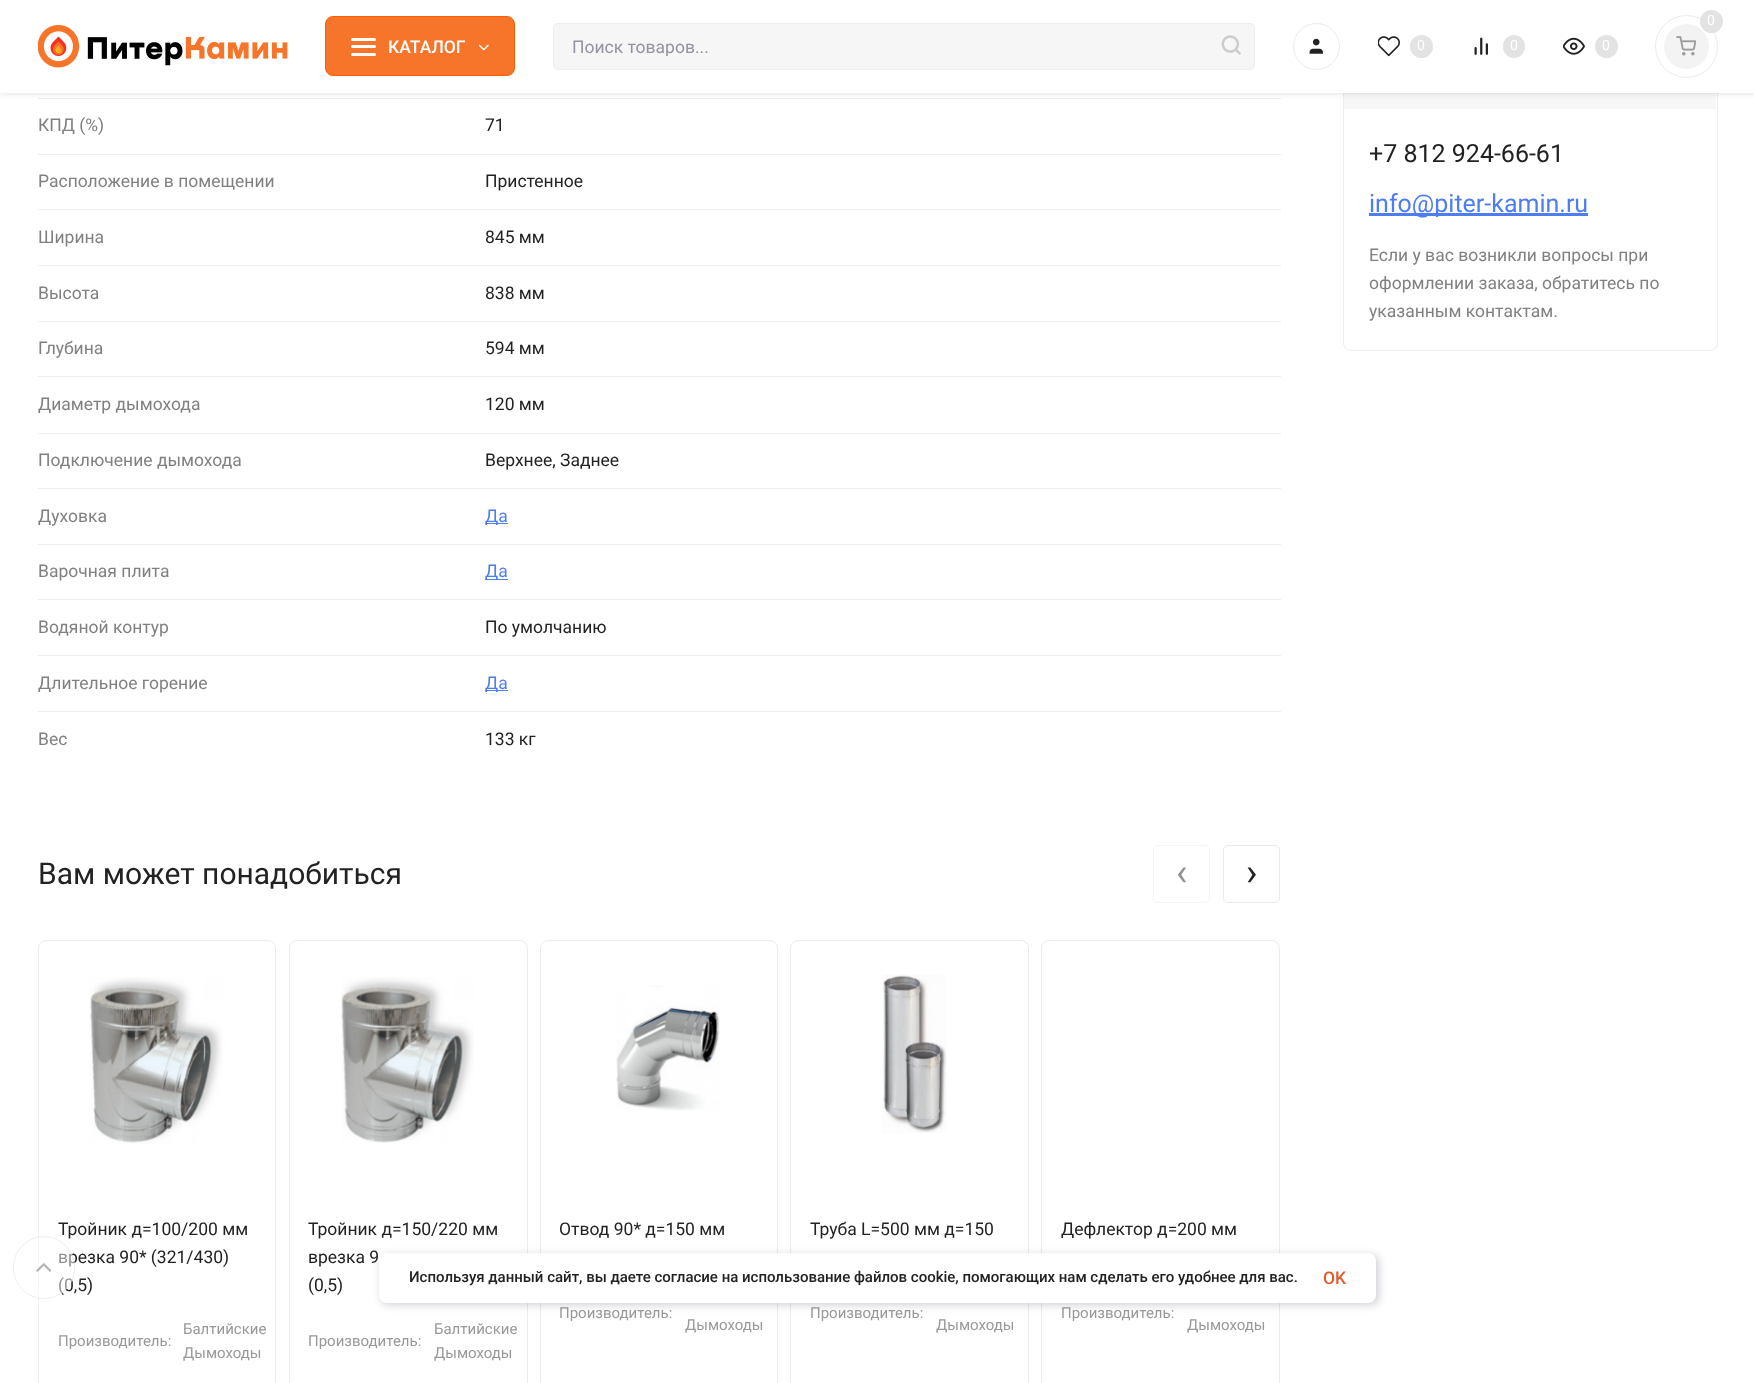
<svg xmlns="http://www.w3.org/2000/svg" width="1754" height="1383">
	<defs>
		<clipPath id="clip1"><rect x="573" y="36" width="633" height="20" /></clipPath>
	</defs>
	<rect width="100%" height="100%" fill="#FFFFFF" />
	<rect x="38" y="98" width="1243" height="1" fill="#EEEEEE" />
	<rect x="1343.5" y="30.5" width="374" height="320" rx="7.5" fill="none" stroke="#EEEEEE" />
	<rect x="1344" y="93" width="372" height="16" fill="#F7F7F7" />
	<rect x="0" y="0" width="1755" height="93" fill="#000000" fill-opacity="0.15" filter="blur(3px)" />
	<rect x="0" y="0" width="1754" height="93" fill="#FFFFFF" />
	<circle cx="1686.5" cy="46.5" r="31" fill="none" stroke="#EBEBEB" />
	<circle cx="1686.5" cy="46.5" r="22.5" fill="#F3F3F3" />
	<circle cx="1711.5" cy="21.5" r="11.5" fill="#E3E3E3" />
	<text x="1707" y="25" font-family="Roboto" font-size="14" fill="#FFFFFF">0</text>
	<image x="1676" y="36" width="20" height="20" href="assets/img1.png" />
	<image x="38" y="25" width="250" height="43" href="assets/img2.png" />
	<rect x="325.5" y="16.5" width="189" height="59" rx="7.5" fill="#F7752A" stroke="#FF5C00" />
	<rect x="351" y="45" width="25" height="3" rx="1.5" fill="#FFFFFF" />
	<rect x="351" y="38" width="25" height="3" rx="1.5" fill="#FFFFFF" />
	<rect x="351" y="53" width="25" height="3" rx="1.5" fill="#FFFFFF" />
	<text x="388" y="53" font-family="Roboto" font-size="17.5" font-weight="500" fill="#FFFFFF">КАТАЛОГ</text>
	<image x="479" y="44" width="10" height="7" href="assets/img3.png" />
	<rect x="553.5" y="23.5" width="701" height="46" rx="4.5" fill="#F6F6F6" stroke="#EEEEEE" />
	<g clip-path="url(#clip1)">
		<text x="572" y="53" font-family="Roboto" font-size="17.5" fill="#9393A1">Поиск товаров...</text>
	</g>
	<image x="1221" y="35" width="20" height="20" href="assets/img4.png" />
	<circle cx="1316.5" cy="46.5" r="23" fill="none" stroke="#EBEBEB" />
	<image x="1309" y="38" width="14" height="16" href="assets/img5.png" />
	<image x="1378" y="36" width="22" height="21" href="assets/img6.png" />
	<circle cx="1421.5" cy="46.5" r="11.5" fill="#E3E3E3" />
	<text x="1417" y="50" font-family="Roboto" font-size="14" fill="#FFFFFF">0</text>
	<image x="1474" y="37" width="14" height="18" href="assets/img7.png" />
	<rect x="1503" y="35" width="22" height="23" rx="11" fill="#E3E3E3" />
	<text x="1510" y="50" font-family="Roboto" font-size="14" fill="#FFFFFF">0</text>
	<image x="1563" y="37" width="22" height="18" href="assets/img8.png" />
	<circle cx="1606.5" cy="46.5" r="11.5" fill="#E3E3E3" />
	<text x="1602" y="50" font-family="Roboto" font-size="14" fill="#FFFFFF">0</text>
	<text x="38" y="131" font-family="Roboto" font-size="17.5" fill="#808080">КПД (%)</text>
	<rect x="38" y="154" width="1243" height="1" fill="#EEEEEE" />
	<text x="485" y="131" font-family="Roboto" font-size="17.5" fill="#222222">71</text>
	<text x="38" y="187" font-family="Roboto" font-size="17.5" fill="#808080">Расположение в помещении</text>
	<rect x="38" y="209" width="1243" height="1" fill="#EEEEEE" />
	<text x="485" y="187" font-family="Roboto" font-size="17.5" fill="#222222">Пристенное</text>
	<text x="38" y="243" font-family="Roboto" font-size="17.5" fill="#808080">Ширина</text>
	<rect x="38" y="265" width="1243" height="1" fill="#EEEEEE" />
	<text x="485" y="243" font-family="Roboto" font-size="17.5" fill="#222222">845 мм</text>
	<text x="38" y="299" font-family="Roboto" font-size="17.5" fill="#808080">Высота</text>
	<rect x="38" y="321" width="1243" height="1" fill="#EEEEEE" />
	<text x="485" y="299" font-family="Roboto" font-size="17.5" fill="#222222">838 мм</text>
	<text x="38" y="354" font-family="Roboto" font-size="17.5" fill="#808080">Глубина</text>
	<rect x="38" y="376" width="1243" height="1" fill="#EEEEEE" />
	<text x="485" y="354" font-family="Roboto" font-size="17.5" fill="#222222">594 мм</text>
	<text x="38" y="410" font-family="Roboto" font-size="17.5" fill="#808080">Диаметр дымохода</text>
	<rect x="38" y="433" width="1243" height="1" fill="#EEEEEE" />
	<text x="485" y="410" font-family="Roboto" font-size="17.5" fill="#222222">120 мм</text>
	<text x="38" y="466" font-family="Roboto" font-size="17.5" fill="#808080">Подключение дымохода</text>
	<rect x="38" y="488" width="1243" height="1" fill="#EEEEEE" />
	<text x="485" y="466" font-family="Roboto" font-size="17.5" fill="#222222">Верхнее, Заднее</text>
	<text x="38" y="522" font-family="Roboto" font-size="17.5" fill="#808080">Духовка</text>
	<rect x="38" y="544" width="1243" height="1" fill="#EEEEEE" />
	<rect x="485" y="523" width="23" height="1" fill="#4E7DF1" />
	<text x="485" y="522" font-family="Roboto" font-size="17.5" fill="#4E7DF1">Да</text>
	<text x="38" y="577" font-family="Roboto" font-size="17.5" fill="#808080">Варочная плита</text>
	<rect x="38" y="599" width="1243" height="1" fill="#EEEEEE" />
	<rect x="485" y="579" width="23" height="1" fill="#4E7DF1" />
	<text x="485" y="577" font-family="Roboto" font-size="17.5" fill="#4E7DF1">Да</text>
	<text x="38" y="633" font-family="Roboto" font-size="17.5" fill="#808080">Водяной контур</text>
	<rect x="38" y="655" width="1243" height="1" fill="#EEEEEE" />
	<text x="485" y="633" font-family="Roboto" font-size="17.5" fill="#222222">По умолчанию</text>
	<text x="38" y="689" font-family="Roboto" font-size="17.5" fill="#808080">Длительное горение</text>
	<rect x="38" y="711" width="1243" height="1" fill="#EEEEEE" />
	<rect x="485" y="690" width="23" height="1" fill="#4E7DF1" />
	<text x="485" y="689" font-family="Roboto" font-size="17.5" fill="#4E7DF1">Да</text>
	<text x="38" y="745" font-family="Roboto" font-size="17.5" fill="#808080">Вес</text>
	<text x="485" y="745" font-family="Roboto" font-size="17.5" fill="#222222">133 кг</text>
	<text x="38" y="884" font-family="Roboto" font-size="30" fill="#222222">Вам может понадобиться</text>
	<rect x="1153.5" y="845.5" width="56" height="57" rx="4.5" fill="none" stroke="#F5F5F5" />
	<text x="1176" y="885" font-family="Roboto" font-size="38" fill="#919191">‹</text>
	<rect x="1223.5" y="845.5" width="56" height="57" rx="4.5" fill="none" stroke="#EBEBEB" />
	<text x="1246" y="885" font-family="Roboto" font-size="38" fill="#222222">›</text>
	<rect x="38.5" y="940.5" width="237" height="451" rx="7.5" fill="none" stroke="#ECECEC" />
	<image x="89" y="977" width="134" height="167" href="assets/img9.png" />
	<g font-family="Roboto" font-size="17.5" fill="#222222">
		<text x="58" y="1235">Тройник д=100/200 мм</text>
		<text x="58" y="1263">врезка 90* (321/430)</text>
		<text x="58" y="1291">(0,5)</text>
	</g>
	<g font-family="Roboto" font-size="15" fill="#999999">
		<text x="58" y="1346">Производитель:</text>
		<text x="183" y="1334">Балтийские</text>
		<text x="183" y="1358">Дымоходы</text>
	</g>
	<rect x="289.5" y="940.5" width="238" height="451" rx="7.5" fill="none" stroke="#ECECEC" />
	<image x="341" y="977" width="133" height="166" href="assets/img10.png" />
	<g font-family="Roboto" font-size="17.5" fill="#222222">
		<text x="308" y="1235">Тройник д=150/220 мм</text>
		<text x="308" y="1263">врезка 9</text>
		<text x="308" y="1291">(0,5)</text>
	</g>
	<g font-family="Roboto" font-size="15" fill="#999999">
		<text x="308" y="1346">Производитель:</text>
		<text x="434" y="1334">Балтийские</text>
		<text x="434" y="1358">Дымоходы</text>
	</g>
	<rect x="540.5" y="940.5" width="237" height="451" rx="7.5" fill="none" stroke="#ECECEC" />
	<image x="616" y="985" width="104" height="126" href="assets/img11.png" />
	<text x="559" y="1235" font-family="Roboto" font-size="17.5" fill="#222222">Отвод 90* д=150 мм</text>
	<g font-family="Roboto" font-size="15" fill="#999999">
		<text x="559" y="1318">Производитель:</text>
		<text x="685" y="1330">Дымоходы</text>
	</g>
	<rect x="790.5" y="940.5" width="238" height="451" rx="7.5" fill="none" stroke="#ECECEC" />
	<image x="882" y="974" width="65" height="159" href="assets/img12.png" />
	<text x="810" y="1235" font-family="Roboto" font-size="17.5" fill="#222222">Труба L=500 мм д=150</text>
	<g font-family="Roboto" font-size="15" fill="#999999">
		<text x="810" y="1318">Производитель:</text>
		<text x="936" y="1330">Дымоходы</text>
	</g>
	<rect x="1041.5" y="940.5" width="238" height="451" rx="7.5" fill="none" stroke="#ECECEC" />
	<text x="1061" y="1235" font-family="Roboto" font-size="17.5" fill="#222222">Дефлектор д=200 мм</text>
	<g font-family="Roboto" font-size="15" fill="#999999">
		<text x="1061" y="1318">Производитель:</text>
		<text x="1187" y="1330">Дымоходы</text>
	</g>
	<text x="1369" y="162" font-family="Roboto" font-size="25" fill="#222222">+7 812 924-66-61</text>
	<rect x="1369" y="213" width="219" height="3" fill="#4E7DF1" />
	<text x="1369" y="212" font-family="Roboto" font-size="25" fill="#4E7DF1">info@piter-kamin.ru</text>
	<g font-family="Roboto" font-size="17.5" fill="#808080">
		<text x="1369" y="261">Если у вас возникли вопросы при</text>
		<text x="1369" y="289">оформлении заказа, обратитесь по</text>
		<text x="1369" y="317">указанным контактам.</text>
	</g>
	<rect x="13" y="1236" width="62" height="63" rx="31" fill="#FFFFFF" fill-opacity="0.5" />
	<rect x="13.5" y="1236.5" width="61" height="62" rx="30.5" fill="none" stroke="#DDDDDD" stroke-opacity="0.5" />
	<image x="36" y="1263" width="15" height="9" href="assets/img13.png" />
	<rect x="381" y="1255" width="998" height="50" rx="8" fill="#646478" fill-opacity="0.3" filter="blur(4px)" />
	<rect x="379" y="1253" width="997" height="50" rx="8" fill="#FFFFFF" />
	<text x="409" y="1282" font-family="Roboto" font-size="15" font-weight="500" fill="#222222">Используя данный сайт, вы даете согласие на использование файлов cookie, помогающих нам сделать его удобнее для вас.</text>
	<text x="1323" y="1284" font-family="Roboto" font-size="17.5" font-weight="500" fill="#E05A2D">OK</text>
</svg>
